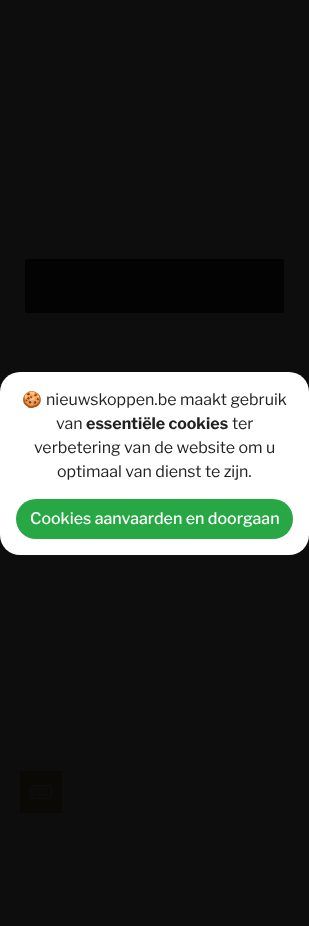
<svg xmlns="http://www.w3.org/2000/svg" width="309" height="926">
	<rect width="100%" height="100%" fill="#0D0D0D" />
	<rect x="25" y="259" width="259" height="54" rx="3" fill="#030303" />
	<rect x="0" y="372" width="309" height="183" rx="20" fill="#FFFFFF" />
	<text x="22" y="405" font-family="Noto Color Emoji" font-size="16" fill="#222222">🍪</text>
	<g font-family="Libre Franklin" font-size="16" fill="#222222">
		<text x="46" y="405">nieuwskoppen.be maakt gebruik</text>
		<text x="56" y="429">van</text>
	</g>
	<text x="86" y="429" font-family="Libre Franklin" font-size="16" font-weight="700" fill="#222222">essentiële cookies</text>
	<g font-family="Libre Franklin" font-size="16" fill="#222222">
		<text x="232" y="429">ter</text>
		<text x="34" y="453">verbetering van de website om u</text>
		<text x="57" y="477">optimaal van dienst te zijn.</text>
	</g>
	<rect x="16" y="499" width="277" height="40" rx="20" fill="#28A745" />
	<text x="30" y="524" font-family="Libre Franklin" font-size="16" font-weight="500" fill="#FFFFFF">Cookies aanvaarden en doorgaan</text>
	<rect x="20" y="771" width="42" height="42" fill="#0B0906" />
	<image x="30" y="784" width="22" height="16" href="assets/img1.png" />
</svg>
